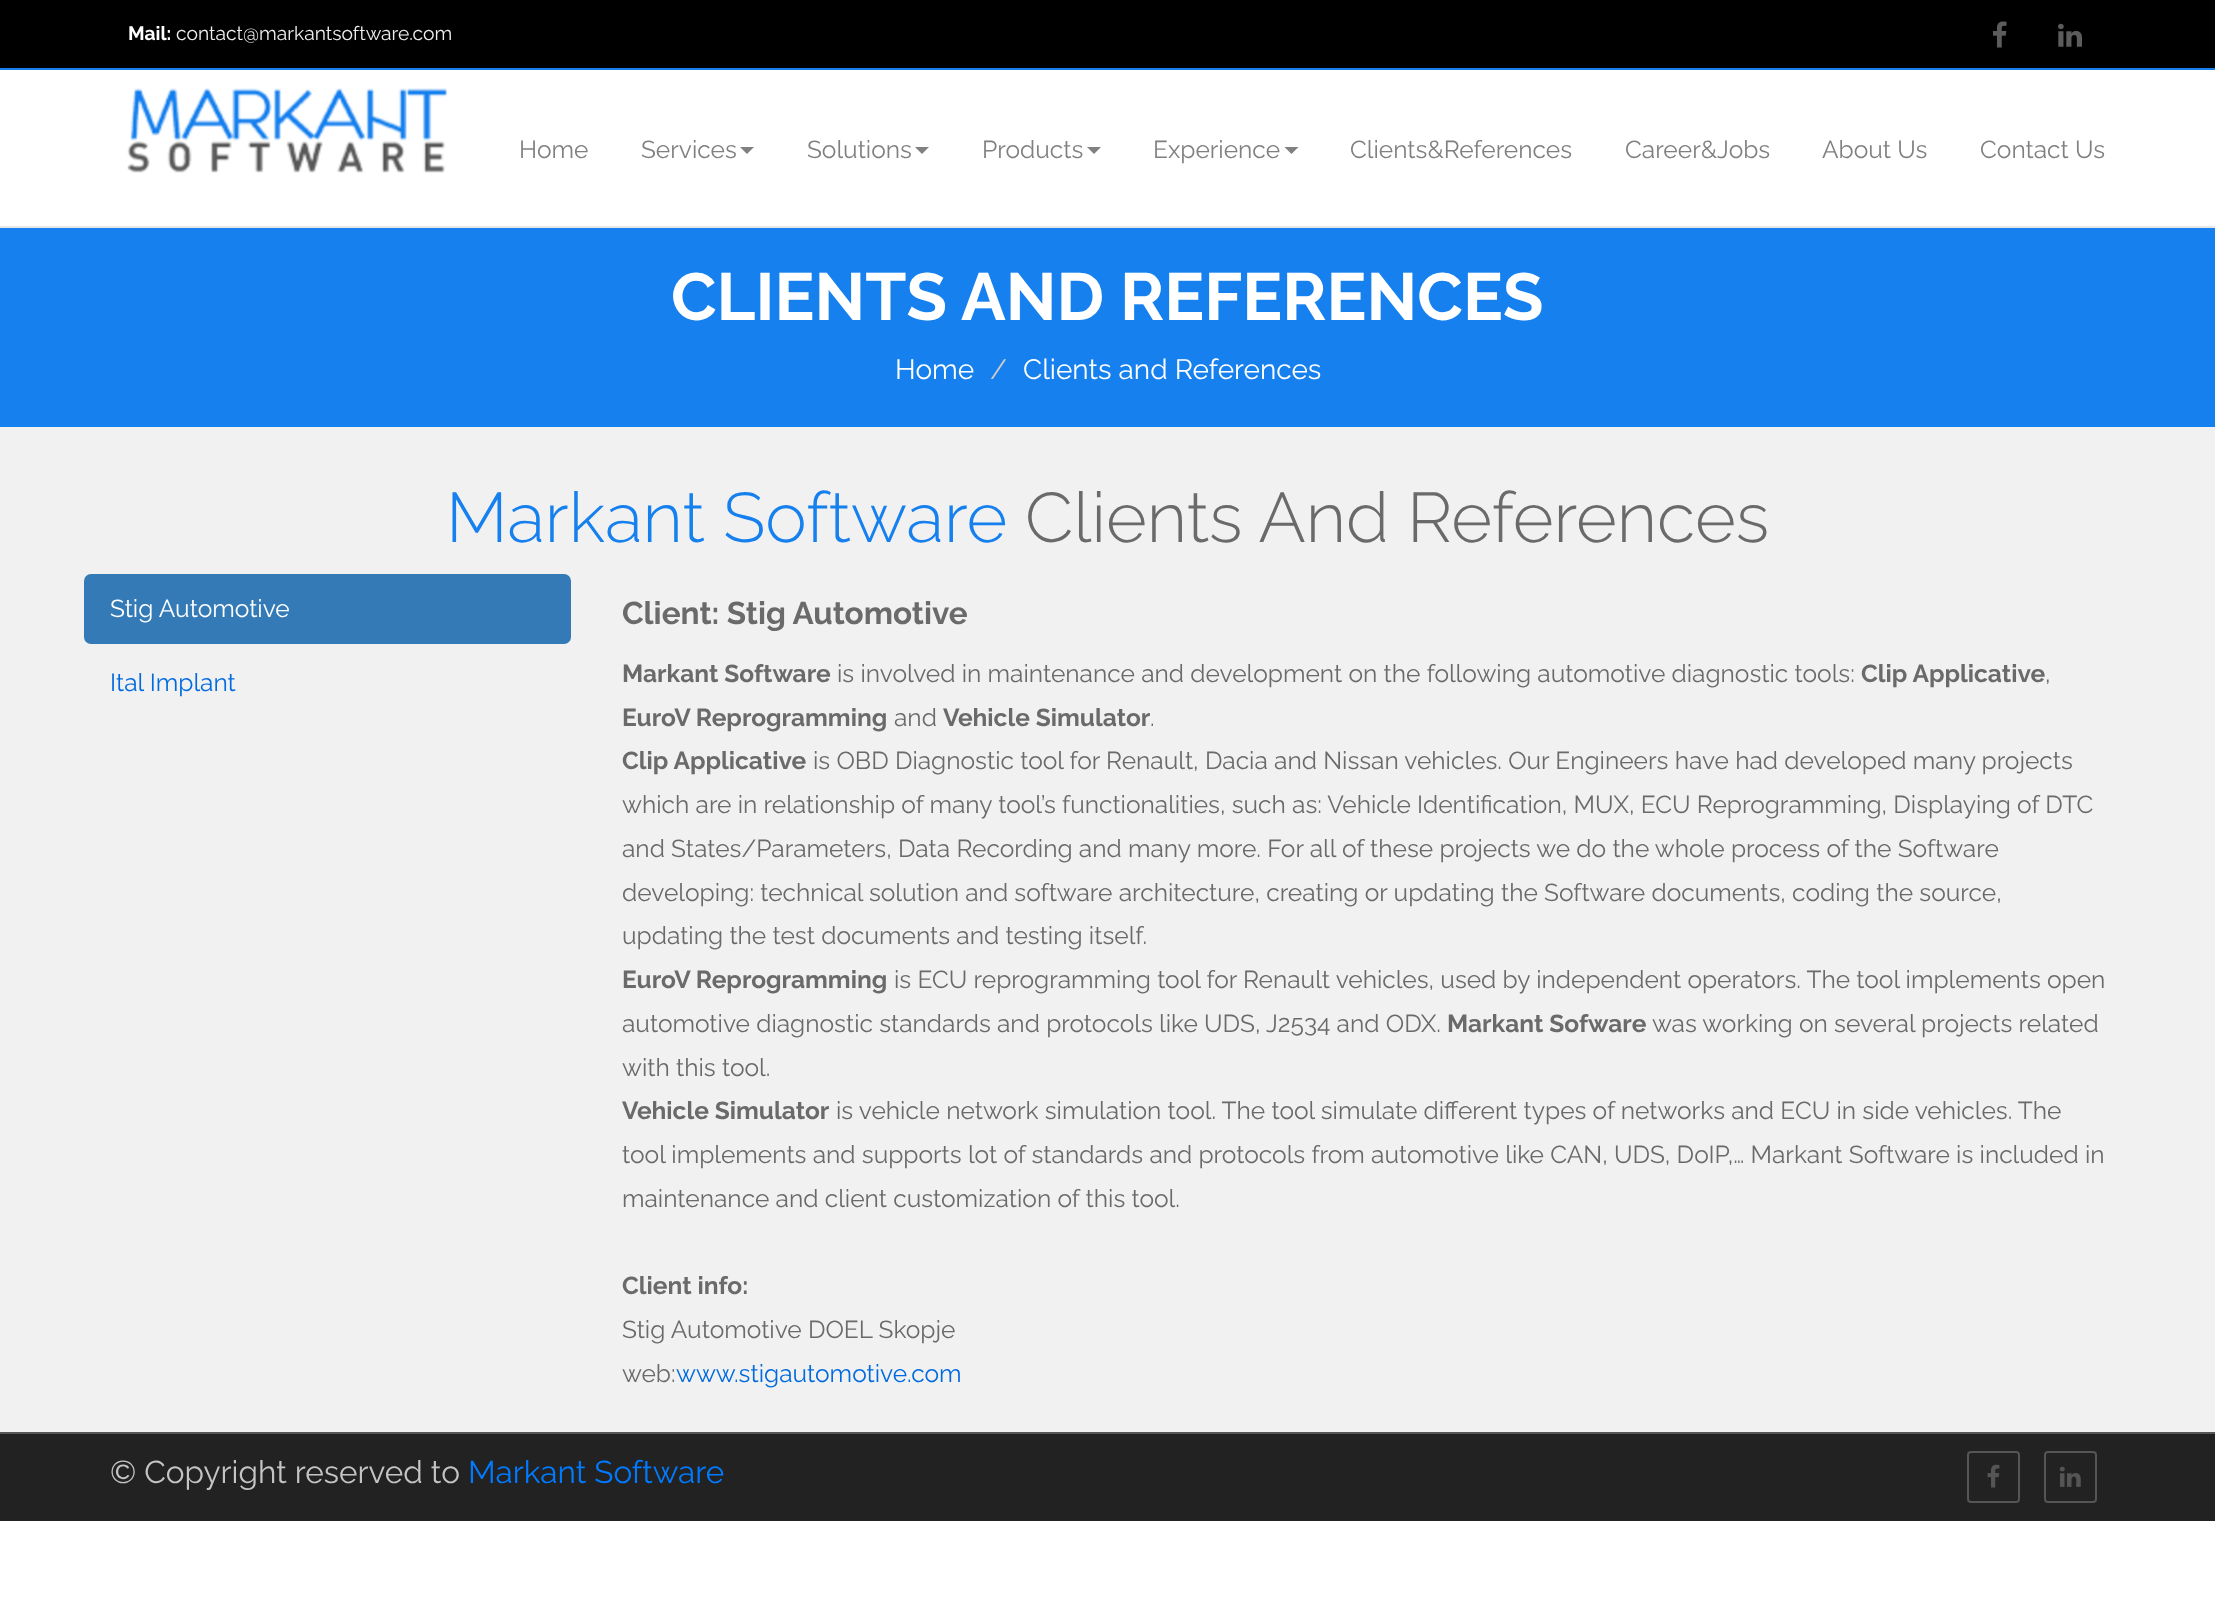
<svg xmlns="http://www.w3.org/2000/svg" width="2215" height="1603">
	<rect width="100%" height="100%" fill="#FFFFFF" />
	<rect x="0" y="0" width="2215" height="68" fill="#000000" />
	<rect x="0" y="68" width="2215" height="2" fill="#1580EE" />
	<text x="128" y="40" font-family="Raleway" font-size="19.25" font-weight="700" fill="#FFFFFF">Mail:</text>
	<text x="176" y="40" font-family="Raleway" font-size="19.25" fill="#EEEEEE">contact@markantsoftware.com</text>
	<image x="1993" y="21" width="14" height="27" href="assets/img1.png" />
	<image x="2058" y="23" width="24" height="24" href="assets/img2.png" />
	<rect x="0" y="226" width="2215" height="2" fill="#E7E7E7" />
	<image x="127" y="88" width="320" height="85" href="assets/img3.png" />
	<g font-family="Raleway" font-size="24.5" fill="#808080">
		<text x="519" y="158">Home</text>
		<text x="641" y="158">Services</text>
	</g>
	<path d="M740 147H754L747 154Z" fill="#808080" />
	<text x="807" y="158" font-family="Raleway" font-size="24.5" fill="#808080">Solutions</text>
	<path d="M915 147H929L922 154Z" fill="#808080" />
	<text x="982" y="158" font-family="Raleway" font-size="24.5" fill="#808080">Products</text>
	<path d="M1087 147H1101L1094 154Z" fill="#808080" />
	<text x="1153" y="158" font-family="Raleway" font-size="24.5" fill="#808080">Experience</text>
	<path d="M1284.5 147H1298.5L1291.5 154Z" fill="#808080" />
	<g font-family="Raleway" font-size="24.5" fill="#808080">
		<text x="1350" y="158">Clients&amp;References</text>
		<text x="1625" y="158">Career&amp;Jobs</text>
		<text x="1822" y="158">About Us</text>
		<text x="1980" y="158">Contact Us</text>
	</g>
	<rect x="0" y="228" width="2215" height="199" fill="#1580EE" />
	<text x="671" y="320" font-family="Raleway" font-size="66.5" font-weight="700" fill="#FFFFFF">CLIENTS AND REFERENCES</text>
	<text x="895" y="379" font-family="Raleway" font-size="28" fill="#FFFFFF">Home</text>
	<text x="990" y="379" font-family="Raleway" font-size="28" fill="#CCCCCC">/</text>
	<text x="1023" y="379" font-family="Raleway" font-size="28" fill="#FFFFFF">Clients and References</text>
	<rect x="0" y="427" width="2215" height="1005" fill="#F1F1F1" />
	<text x="446" y="542" font-family="Raleway" font-size="70" font-weight="300" fill="#1580EE">Markant Software</text>
	<text x="1025" y="542" font-family="Raleway" font-size="70" font-weight="300" fill="#6A6A6A">Clients And References</text>
	<rect x="84" y="574" width="487" height="70" rx="7" fill="#337AB7" />
	<text x="110" y="617" font-family="Raleway" font-size="24.5" fill="#FFFFFF">Stig Automotive</text>
	<text x="110" y="691" font-family="Raleway" font-size="24.5" fill="#006ADF">Ital Implant</text>
	<text x="622" y="624" font-family="Raleway" font-size="31.5" font-weight="700" fill="#6A6A6A">Client: Stig Automotive</text>
	<text x="622" y="682" font-family="Raleway" font-size="24.5" font-weight="700" fill="#6A6A6A">Markant Software</text>
	<text x="837" y="682" font-family="Raleway" font-size="24.5" fill="#6A6A6A">is involved in maintenance and development on the following automotive diagnostic tools:</text>
	<text x="1861" y="682" font-family="Raleway" font-size="24.5" font-weight="700" fill="#6A6A6A">Clip Applicative</text>
	<text x="2045" y="682" font-family="Raleway" font-size="24.5" fill="#6A6A6A">,</text>
	<text x="622" y="726" font-family="Raleway" font-size="24.5" font-weight="700" fill="#6A6A6A">EuroV Reprogramming</text>
	<text x="894" y="726" font-family="Raleway" font-size="24.5" fill="#6A6A6A">and</text>
	<text x="943" y="726" font-family="Raleway" font-size="24.5" font-weight="700" fill="#6A6A6A">Vehicle Simulator</text>
	<text x="1150" y="726" font-family="Raleway" font-size="24.5" fill="#6A6A6A">.</text>
	<text x="622" y="769" font-family="Raleway" font-size="24.5" font-weight="700" fill="#6A6A6A">Clip Applicative</text>
	<g font-family="Raleway" font-size="24.5" fill="#6A6A6A">
		<text x="813" y="769">is OBD Diagnostic tool for Renault, Dacia and Nissan vehicles. Our Engineers have had developed many projects</text>
		<text x="622" y="813">which are in relationship of many tool’s functionalities, such as: Vehicle Identification, MUX, ECU Reprogramming, Displaying of DTC</text>
		<text x="622" y="857">and States/Parameters, Data Recording and many more. For all of these projects we do the whole process of the Software</text>
		<text x="622" y="901">developing: technical solution and software architecture, creating or updating the Software documents, coding the source,</text>
		<text x="622" y="944">updating the test documents and testing itself.</text>
	</g>
	<text x="622" y="988" font-family="Raleway" font-size="24.5" font-weight="700" fill="#6A6A6A">EuroV Reprogramming</text>
	<g font-family="Raleway" font-size="24.5" fill="#6A6A6A">
		<text x="894" y="988">is ECU reprogramming tool for Renault vehicles, used by independent operators. The tool implements open</text>
		<text x="622" y="1032">automotive diagnostic standards and protocols like UDS, J2534 and ODX.</text>
	</g>
	<text x="1447" y="1032" font-family="Raleway" font-size="24.5" font-weight="700" fill="#6A6A6A">Markant Sofware</text>
	<g font-family="Raleway" font-size="24.5" fill="#6A6A6A">
		<text x="1652" y="1032">was working on several projects related</text>
		<text x="622" y="1076">with this tool.</text>
	</g>
	<text x="622" y="1119" font-family="Raleway" font-size="24.5" font-weight="700" fill="#6A6A6A">Vehicle Simulator</text>
	<g font-family="Raleway" font-size="24.5" fill="#6A6A6A">
		<text x="836" y="1119">is vehicle network simulation tool. The tool simulate different types of networks and ECU in side vehicles. The</text>
		<text x="622" y="1163">tool implements and supports lot of standards and protocols from automotive like CAN, UDS, DoIP,… Markant Software is included in</text>
		<text x="622" y="1207">maintenance and client customization of this tool.</text>
	</g>
	<text x="622" y="1294" font-family="Raleway" font-size="24.5" font-weight="700" fill="#6A6A6A">Client info:</text>
	<g font-family="Raleway" font-size="24.5" fill="#6A6A6A">
		<text x="622" y="1338">Stig Automotive DOEL Skopje</text>
		<text x="622" y="1382">web:</text>
	</g>
	<text x="676" y="1382" font-family="Raleway" font-size="24.5" fill="#006ADF">www.stigautomotive.com</text>
	<rect x="0" y="1434" width="2215" height="87" fill="#222222" />
	<rect x="0" y="1432" width="2215" height="2" fill="#555555" />
	<text x="110" y="1483" font-family="Raleway" font-size="31.5" fill="#C4C4C4">© Copyright reserved to</text>
	<text x="468" y="1483" font-family="Raleway" font-size="31.5" fill="#007AFF">Markant Software</text>
	<rect x="1968" y="1452" width="51" height="50" rx="3" fill="none" stroke="#555555" stroke-width="2" />
	<image x="1987" y="1464" width="13" height="24" href="assets/img4.png" />
	<rect x="2045" y="1452" width="51" height="50" rx="3" fill="none" stroke="#555555" stroke-width="2" />
	<image x="2059" y="1466" width="22" height="21" href="assets/img5.png" />
</svg>
